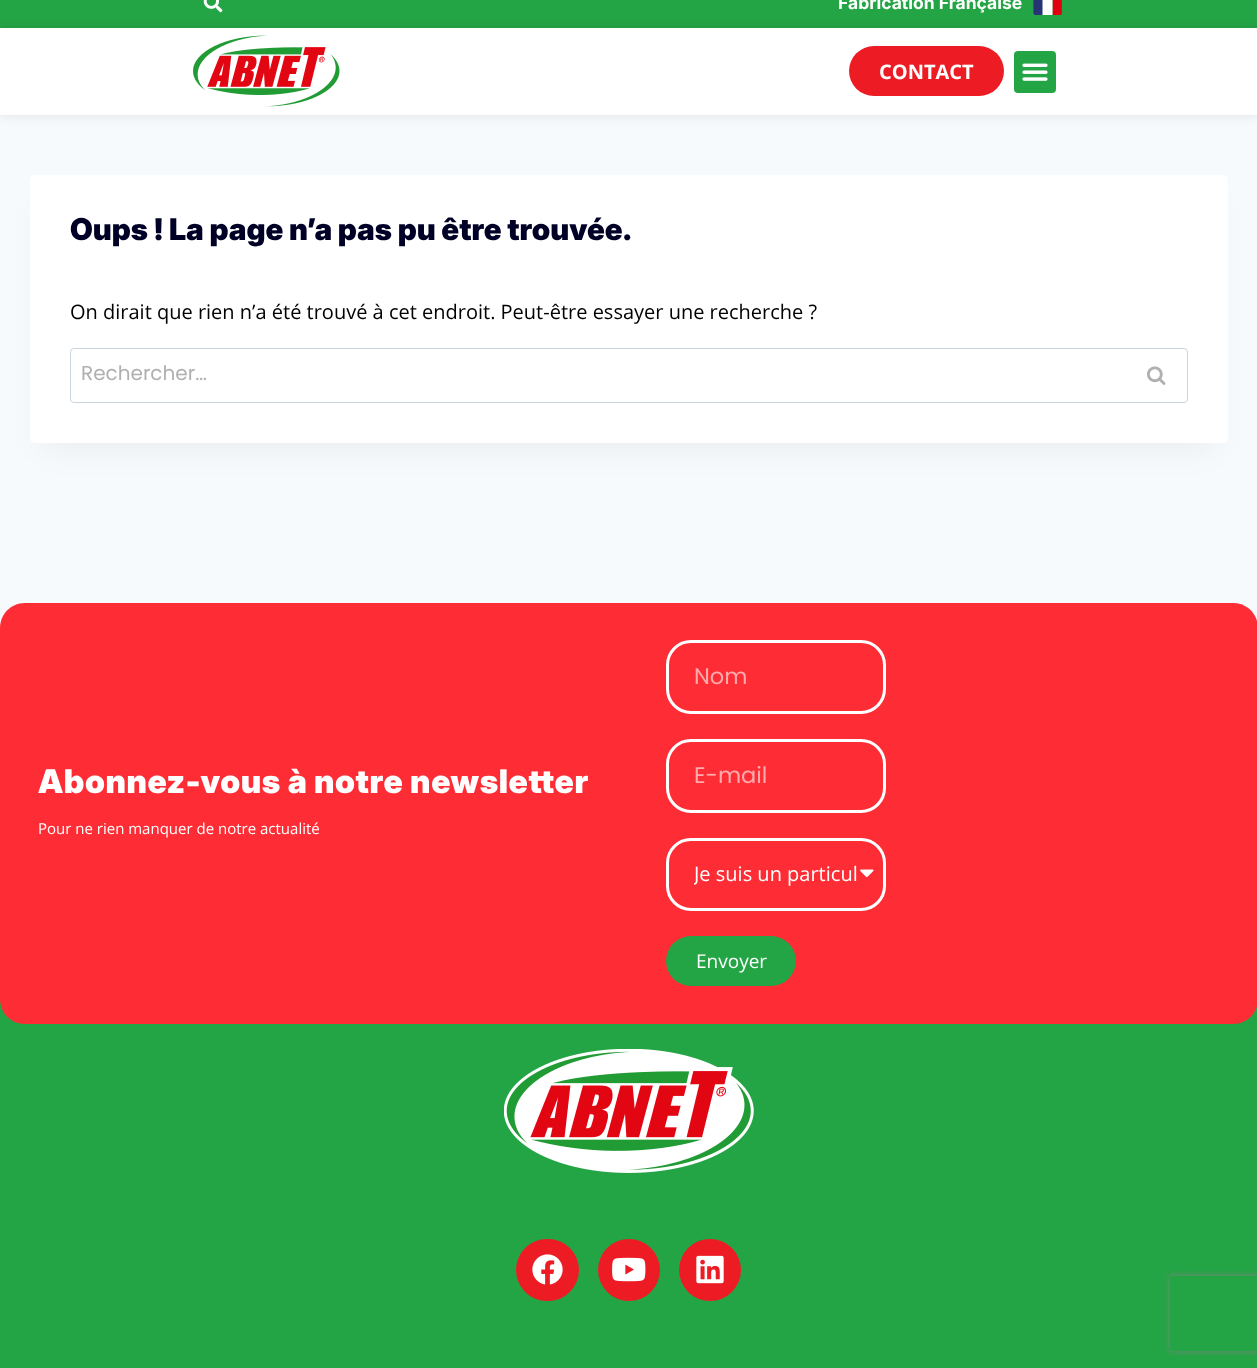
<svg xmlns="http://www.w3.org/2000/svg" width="1257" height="1368">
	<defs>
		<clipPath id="clip1"><rect x="694" y="858" width="165" height="32" /></clipPath>
		<clipPath id="clip2"><path d="M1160 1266H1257V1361H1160ZM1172.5 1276H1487.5C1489 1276 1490 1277 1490 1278.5V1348.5C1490 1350 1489 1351 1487.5 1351H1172.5C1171 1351 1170 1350 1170 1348.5V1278.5C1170 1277 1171 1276 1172.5 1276Z" clip-rule="evenodd" /></clipPath>
	</defs>
	<rect width="100%" height="100%" fill="#F7FAFC" />
	<rect x="0" y="0" width="1257" height="28" fill="#24A545" />
	<image x="203" y="0" width="20" height="13" href="assets/img1.png" />
	<text x="838" y="9" font-family="Inter" font-size="17.5" font-weight="700" fill="#FFFFFF">Fabrication Française</text>
	<image x="1033" y="0" width="29" height="15" href="assets/img2.png" />
	<rect x="0" y="28" width="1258" height="87" fill="#000000" fill-opacity="0.1" filter="blur(6px)" />
	<rect x="0" y="28" width="1257" height="87" fill="#FFFFFF" />
	<image x="193" y="35" width="147" height="72" href="assets/img3.png" />
	<rect x="849" y="46" width="155" height="50" rx="25" fill="#ED1C24" />
	<text x="879" y="79" font-family="Open Sans" font-size="20" font-weight="700" fill="#FFFFFF">CONTACT</text>
	<rect x="1014" y="51" width="42" height="42" rx="4" fill="#24A545" />
	<image x="1022" y="63" width="26" height="18" href="assets/img4.png" />
	<rect x="43" y="206" width="1172" height="243" fill="#000000" fill-opacity="0.05" filter="blur(15.5px)" />
	<rect x="30" y="175" width="1198" height="268" rx="5" fill="#FFFFFF" />
	<text x="70" y="240" font-family="Inter" font-size="30" font-weight="900" fill="#000027">Oups ! La page n’a pas pu être trouvée.</text>
	<text x="70" y="319" font-family="Open Sans" font-size="20" fill="#000000">On dirait que rien n’a été trouvé à cet endroit. Peut-être essayer une recherche ?</text>
	<rect x="70.5" y="348.5" width="1117" height="54" rx="3.5" fill="none" stroke="#CBD5E0" />
	<text x="81" y="380" font-family="Poppins" font-size="20" fill="#B0B0B0">Rechercher…</text>
	<image x="1147" y="366" width="19" height="19" href="assets/img5.png" />
	<rect x="0" y="999" width="1257" height="369" fill="#24A545" />
	<path d="M25 603H629V1024H25C11 1024 0 1013 0 999V628C0 614 11 603 25 603Z" fill="#FE2C34" />
	<text x="38" y="793" font-family="'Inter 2'" font-size="32.5" font-weight="900" letter-spacing="0.6" fill="#FFFFFF">Abonnez-vous à notre newsletter</text>
	<text x="38" y="834" font-family="Open Sans" font-size="15" fill="#FFFFFF">Pour ne rien manquer de notre actualité</text>
	<path d="M629 603H1233C1247 603 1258 614 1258 628V999C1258 1013 1247 1024 1233 1024H629Z" fill="#FE2C34" />
	<rect x="667.5" y="641.5" width="217" height="71" rx="23.5" fill="none" stroke="#FFFFFF" stroke-width="3" />
	<text x="694" y="684" font-family="Poppins" font-size="22.5" fill="#FFABAE">Nom</text>
	<rect x="667.5" y="740.5" width="217" height="71" rx="23.5" fill="none" stroke="#FFFFFF" stroke-width="3" />
	<text x="694" y="783" font-family="Poppins" font-size="22.5" fill="#FFABAE">E-mail</text>
	<rect x="667.5" y="839.5" width="217" height="70" rx="23.5" fill="none" stroke="#FFFFFF" stroke-width="3" />
	<g clip-path="url(#clip1)">
		<text x="694" y="881" font-family="Open Sans" font-size="20" fill="#FFFFFF">Je suis un particul</text>
	</g>
	<image x="860" y="869" width="14" height="9" href="assets/img6.png" />
	<rect x="666" y="936" width="130" height="50" rx="25" fill="#24A545" />
	<text x="696" y="968" font-family="Open Sans" font-size="19" fill="#FFFFFF">Envoyer</text>
	<image x="504" y="1049" width="250" height="124" href="assets/img7.png" />
	<rect x="516" y="1239" width="63" height="62" rx="31" fill="#ED1C24" />
	<image x="532" y="1254" width="31" height="31" href="assets/img8.png" />
	<circle cx="629" cy="1270" r="31" fill="#ED1C24" />
	<image x="612" y="1257" width="34" height="25" href="assets/img9.png" />
	<circle cx="710" cy="1270" r="31" fill="#ED1C24" />
	<image x="696" y="1255" width="28" height="29" href="assets/img10.png" />
	<g clip-path="url(#clip2)">
		<rect x="1170" y="1276" width="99" height="75" rx="2.5" fill="#808080" filter="blur(3px)" />
	</g>
</svg>
